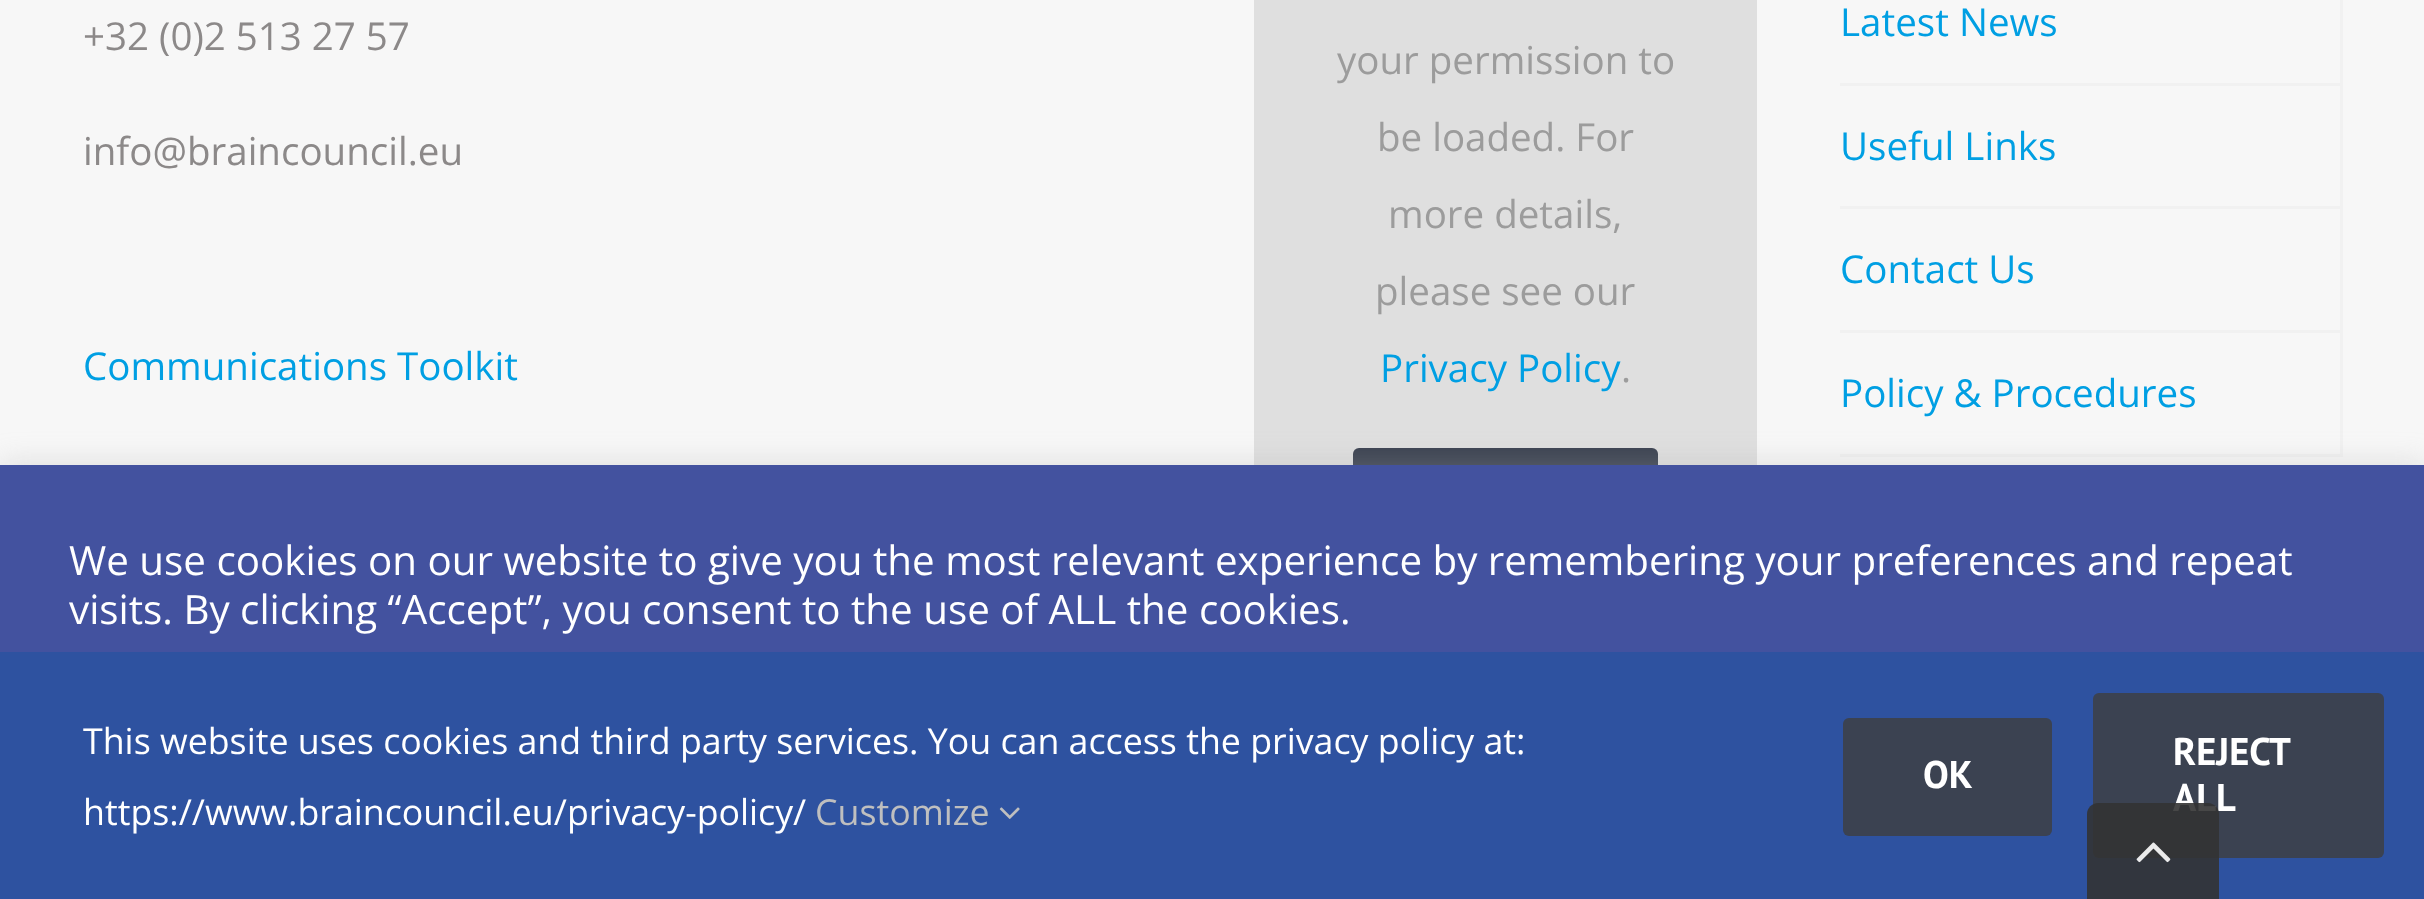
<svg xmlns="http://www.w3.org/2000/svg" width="2424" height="899">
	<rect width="100%" height="100%" fill="#F7F7F7" />
	<g font-family="Open Sans" font-size="38.5" fill="#8C8989">
		<text x="83" y="50">+32 (0)2 513 27 57</text>
		<text x="83" y="165">info@braincouncil.eu</text>
	</g>
	<text x="83" y="380" font-family="Open Sans" font-size="38.5" fill="#009FE3">Communications Toolkit</text>
	<rect x="1254" y="0" width="503" height="465" fill="#DFDFDF" />
	<g font-family="Open Sans" font-size="38.5" fill="#9C9C9C">
		<text x="1337" y="74">your permission to</text>
		<text x="1377" y="151">be loaded. For</text>
		<text x="1388" y="228">more details,</text>
		<text x="1375" y="305">please see our</text>
	</g>
	<text x="1380" y="382" font-family="Open Sans" font-size="38.5" fill="#009FE3">Privacy Policy</text>
	<text x="1621" y="382" font-family="Open Sans" font-size="38.5" fill="#9C9C9C">.</text>
	<rect x="1353" y="448" width="305" height="119" rx="6" fill="#3B4251" />
	<rect x="2340" y="0" width="3" height="457" fill="#F1F1F1" />
	<rect x="1840" y="83" width="500" height="3" fill="#F1F1F1" />
	<text x="1840" y="36" font-family="Open Sans" font-size="38.5" fill="#009FE3">Latest News</text>
	<rect x="1840" y="206" width="500" height="3" fill="#F1F1F1" />
	<text x="1840" y="160" font-family="Open Sans" font-size="38.5" fill="#009FE3">Useful Links</text>
	<rect x="1840" y="330" width="500" height="3" fill="#F1F1F1" />
	<text x="1840" y="283" font-family="Open Sans" font-size="38.5" fill="#009FE3">Contact Us</text>
	<rect x="1840" y="454" width="500" height="3" fill="#F1F1F1" />
	<text x="1840" y="407" font-family="Open Sans" font-size="38.5" fill="#009FE3">Policy &amp; Procedures</text>
	<rect x="0" y="462" width="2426" height="435" fill="#ACABAB" fill-opacity="0.3" filter="blur(14px)" />
	<rect x="0" y="465" width="2424" height="187" fill="#43529F" />
	<g font-family="Open Sans" font-size="40.33" fill="#FFFFFF">
		<text x="69" y="575">We use cookies on our website to give you the most relevant experience by remembering your preferences and repeat</text>
		<text x="69" y="624">visits. By clicking “Accept”, you consent to the use of ALL the cookies.</text>
	</g>
	<rect x="0" y="652" width="2424" height="247" fill="#2E52A0" />
	<g font-family="Open Sans" font-size="35.75" fill="#FFFFFF">
		<text x="83" y="754">This website uses cookies and third party services. You can access the privacy policy at:</text>
		<text x="83" y="825">https://www.braincouncil.eu/privacy-policy/</text>
	</g>
	<text x="815" y="825" font-family="Open Sans" font-size="35.75" fill="#BFBFBF">Customize</text>
	<image x="999" y="807" width="21" height="12" href="assets/img1.png" />
	<rect x="1843" y="718" width="209" height="118" rx="6" fill="#3B4251" />
	<text x="1923" y="788" font-family="PT Sans" font-size="38.5" font-weight="700" fill="#FFFFFF">OK</text>
	<rect x="2093" y="693" width="291" height="165" rx="6" fill="#3B4251" />
	<g font-family="PT Sans" font-size="38.5" font-weight="700" fill="#FFFFFF">
		<text x="2173" y="765">REJECT</text>
		<text x="2173" y="811">ALL</text>
	</g>
	<path d="M2098 803H2208C2214 803 2219 808 2219 814V899H2087V814C2087 808 2092 803 2098 803Z" fill="#333333" fill-opacity="0.9" />
	<image x="2136" y="842" width="35" height="21" href="assets/img2.png" />
</svg>
